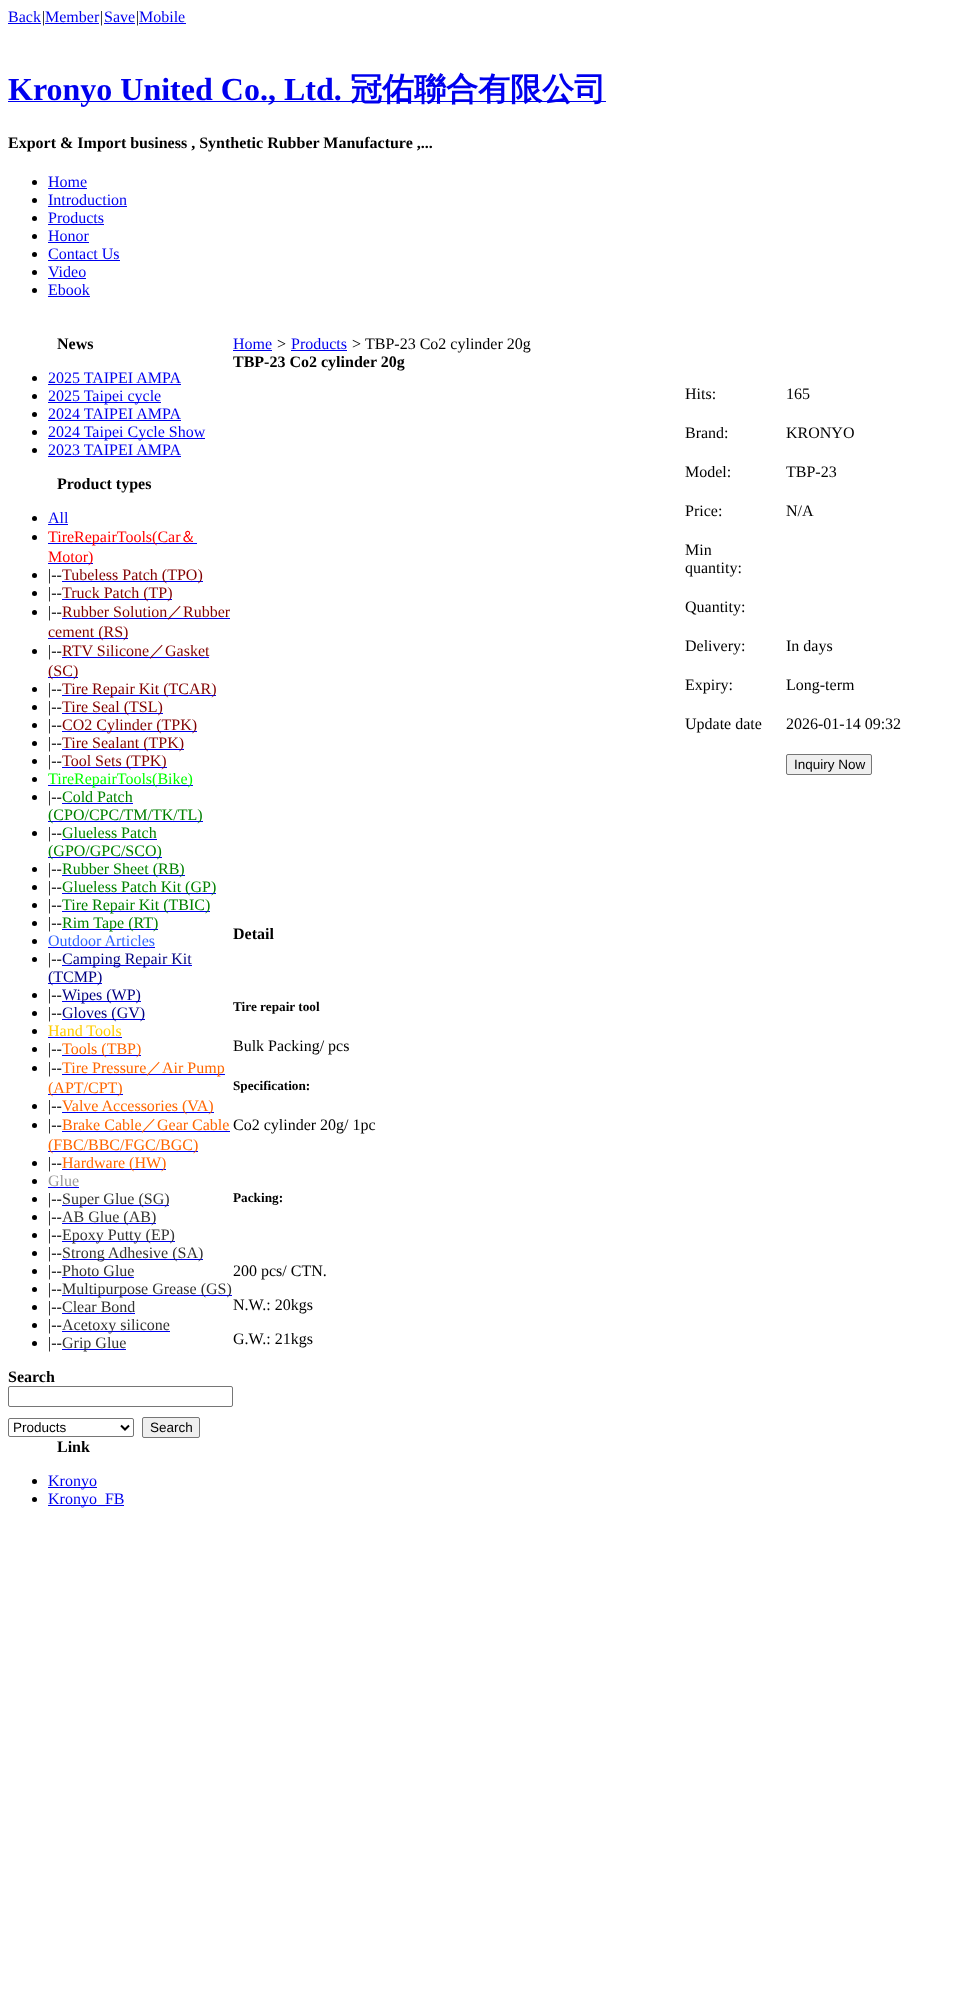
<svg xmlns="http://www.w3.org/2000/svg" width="964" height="1993">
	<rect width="100%" height="100%" fill="#FFFFFF" />
	<text x="8" y="22" font-family="Liberation Serif" font-size="16" fill="#0000EE">Back</text>
	<text x="41" y="22" font-family="Liberation Serif" font-size="16" font-style="italic" fill="#000000">|</text>
	<rect x="8" y="23" width="33" height="1" fill="#0000EE" />
	<rect x="45" y="23" width="54" height="1" fill="#0000EE" />
	<text x="45" y="22" font-family="Liberation Serif" font-size="16" fill="#0000EE">Member</text>
	<text x="99" y="22" font-family="Liberation Serif" font-size="16" font-style="italic" fill="#000000">|</text>
	<text x="104" y="22" font-family="Liberation Serif" font-size="16" fill="#0000EE">Save</text>
	<rect x="104" y="23" width="31" height="1" fill="#0000EE" />
	<text x="135" y="22" font-family="Liberation Serif" font-size="16" font-style="italic" fill="#000000">|</text>
	<text x="139" y="22" font-family="Liberation Serif" font-size="16" fill="#0000EE">Mobile</text>
	<rect x="139" y="23" width="47" height="1" fill="#0000EE" />
	<rect x="8" y="101" width="598" height="1" fill="#0000EE" />
	<text x="8" y="100" font-family="Liberation Serif" font-size="32" font-weight="700" fill="#0000EE">Kronyo United Co., Ltd.</text>
	<text x="350" y="100" font-family="WenQuanYi Zen Hei" font-size="32" font-weight="700" fill="#0000EE">冠佑聯合有限公司</text>
	<text x="8" y="148" font-family="Liberation Serif" font-size="16" font-weight="700" fill="#000000">Export &amp; Import business , Synthetic Rubber Manufacture ,...</text>
	<circle cx="34.5" cy="182.5" r="2.5" fill="#000000" />
	<text x="48" y="187" font-family="Liberation Serif" font-size="16" fill="#0000EE">Home</text>
	<rect x="48" y="188" width="39" height="1" fill="#0000EE" />
	<circle cx="34.5" cy="200.5" r="2.5" fill="#000000" />
	<text x="48" y="205" font-family="Liberation Serif" font-size="16" fill="#0000EE">Introduction</text>
	<rect x="48" y="206" width="79" height="1" fill="#0000EE" />
	<circle cx="34.5" cy="218.5" r="2.5" fill="#000000" />
	<text x="48" y="223" font-family="Liberation Serif" font-size="16" fill="#0000EE">Products</text>
	<rect x="48" y="224" width="56" height="1" fill="#0000EE" />
	<circle cx="34.5" cy="236.5" r="2.5" fill="#000000" />
	<text x="48" y="241" font-family="Liberation Serif" font-size="16" fill="#0000EE">Honor</text>
	<rect x="48" y="242" width="41" height="1" fill="#0000EE" />
	<circle cx="34.5" cy="254.5" r="2.5" fill="#000000" />
	<text x="48" y="259" font-family="Liberation Serif" font-size="16" fill="#0000EE">Contact Us</text>
	<rect x="48" y="260" width="72" height="1" fill="#0000EE" />
	<circle cx="34.5" cy="272.5" r="2.5" fill="#000000" />
	<text x="48" y="277" font-family="Liberation Serif" font-size="16" fill="#0000EE">Video</text>
	<rect x="48" y="278" width="38" height="1" fill="#0000EE" />
	<circle cx="34.5" cy="290.5" r="2.5" fill="#000000" />
	<text x="48" y="295" font-family="Liberation Serif" font-size="16" fill="#0000EE">Ebook</text>
	<rect x="48" y="296" width="42" height="1" fill="#0000EE" />
	<text x="57" y="349" font-family="Liberation Serif" font-size="16" font-weight="700" fill="#000000">News</text>
	<circle cx="34.5" cy="378.5" r="2.5" fill="#000000" />
	<text x="48" y="383" font-family="Liberation Serif" font-size="16" fill="#0000EE">2025 TAIPEI AMPA</text>
	<rect x="48" y="384" width="133" height="1" fill="#0000EE" />
	<circle cx="34.5" cy="396.5" r="2.5" fill="#000000" />
	<rect x="48" y="402" width="113" height="1" fill="#0000EE" />
	<text x="48" y="401" font-family="Liberation Serif" font-size="16" fill="#0000EE">2025 Taipei cycle</text>
	<circle cx="34.5" cy="414.5" r="2.5" fill="#000000" />
	<text x="48" y="419" font-family="Liberation Serif" font-size="16" fill="#0000EE">2024 TAIPEI AMPA</text>
	<rect x="48" y="420" width="133" height="1" fill="#0000EE" />
	<circle cx="34.5" cy="432.5" r="2.5" fill="#000000" />
	<rect x="48" y="438" width="157" height="1" fill="#0000EE" />
	<text x="48" y="437" font-family="Liberation Serif" font-size="16" fill="#0000EE">2024 Taipei Cycle Show</text>
	<circle cx="34.5" cy="450.5" r="2.5" fill="#000000" />
	<text x="48" y="455" font-family="Liberation Serif" font-size="16" fill="#0000EE">2023 TAIPEI AMPA</text>
	<rect x="48" y="456" width="133" height="1" fill="#0000EE" />
	<text x="57" y="489" font-family="Liberation Serif" font-size="16" font-weight="700" fill="#000000">Product types</text>
	<circle cx="34.5" cy="518.5" r="2.5" fill="#000000" />
	<text x="48" y="523" font-family="Liberation Serif" font-size="16" fill="#0000EE">All</text>
	<rect x="48" y="524" width="20" height="1" fill="#0000EE" />
	<circle cx="34.5" cy="537.5" r="2.5" fill="#000000" />
	<rect x="48" y="543" width="149" height="1" fill="#0000EE" />
	<text x="48" y="542" font-family="Liberation Serif" font-size="16" fill="#FF0000">TireRepairTools(Car</text>
	<text x="180" y="542" font-family="WenQuanYi Zen Hei" font-size="16" font-weight="500" fill="#FF0000">＆</text>
	<rect x="48" y="563" width="45" height="1" fill="#0000EE" />
	<text x="48" y="562" font-family="Liberation Serif" font-size="16" fill="#FF0000">Motor)</text>
	<circle cx="34.5" cy="575.5" r="2.5" fill="#000000" />
	<text x="48" y="580" font-family="Liberation Serif" font-size="16" fill="#000000">|--</text>
	<rect x="62" y="581" width="141" height="1" fill="#0000EE" />
	<text x="62" y="580" font-family="Liberation Serif" font-size="16" fill="#800000">Tubeless Patch (TPO)</text>
	<circle cx="34.5" cy="593.5" r="2.5" fill="#000000" />
	<text x="48" y="598" font-family="Liberation Serif" font-size="16" fill="#000000">|--</text>
	<rect x="62" y="599" width="110" height="1" fill="#0000EE" />
	<text x="62" y="598" font-family="Liberation Serif" font-size="16" fill="#800000">Truck Patch (TP)</text>
	<circle cx="34.5" cy="612.5" r="2.5" fill="#000000" />
	<text x="48" y="617" font-family="Liberation Serif" font-size="16" fill="#000000">|--</text>
	<text x="62" y="617" font-family="Liberation Serif" font-size="16" fill="#800000">Rubber Solution</text>
	<rect x="62" y="618" width="168" height="1" fill="#0000EE" />
	<text x="167" y="617" font-family="WenQuanYi Zen Hei" font-size="16" font-weight="500" fill="#800000">／</text>
	<text x="183" y="617" font-family="Liberation Serif" font-size="16" fill="#800000">Rubber</text>
	<rect x="48" y="638" width="80" height="1" fill="#0000EE" />
	<text x="48" y="637" font-family="Liberation Serif" font-size="16" fill="#800000">cement (RS)</text>
	<circle cx="34.5" cy="651.5" r="2.5" fill="#000000" />
	<text x="48" y="656" font-family="Liberation Serif" font-size="16" fill="#000000">|--</text>
	<text x="62" y="656" font-family="Liberation Serif" font-size="16" fill="#800000">RTV Silicone</text>
	<rect x="62" y="657" width="147" height="1" fill="#0000EE" />
	<text x="149" y="656" font-family="WenQuanYi Zen Hei" font-size="16" font-weight="500" fill="#800000">／</text>
	<text x="165" y="656" font-family="Liberation Serif" font-size="16" fill="#800000">Gasket</text>
	<rect x="48" y="677" width="30" height="1" fill="#0000EE" />
	<text x="48" y="676" font-family="Liberation Serif" font-size="16" fill="#800000">(SC)</text>
	<circle cx="34.5" cy="689.5" r="2.5" fill="#000000" />
	<text x="48" y="694" font-family="Liberation Serif" font-size="16" fill="#000000">|--</text>
	<rect x="62" y="695" width="154" height="1" fill="#0000EE" />
	<text x="62" y="694" font-family="Liberation Serif" font-size="16" fill="#800000">Tire Repair Kit (TCAR)</text>
	<circle cx="34.5" cy="707.5" r="2.5" fill="#000000" />
	<text x="48" y="712" font-family="Liberation Serif" font-size="16" fill="#000000">|--</text>
	<rect x="62" y="713" width="101" height="1" fill="#0000EE" />
	<text x="62" y="712" font-family="Liberation Serif" font-size="16" fill="#800000">Tire Seal (TSL)</text>
	<circle cx="34.5" cy="725.5" r="2.5" fill="#000000" />
	<text x="48" y="730" font-family="Liberation Serif" font-size="16" fill="#000000">|--</text>
	<rect x="62" y="731" width="135" height="1" fill="#0000EE" />
	<text x="62" y="730" font-family="Liberation Serif" font-size="16" fill="#800000">CO2 Cylinder (TPK)</text>
	<circle cx="34.5" cy="743.5" r="2.5" fill="#000000" />
	<text x="48" y="748" font-family="Liberation Serif" font-size="16" fill="#000000">|--</text>
	<rect x="62" y="749" width="122" height="1" fill="#0000EE" />
	<text x="62" y="748" font-family="Liberation Serif" font-size="16" fill="#800000">Tire Sealant (TPK)</text>
	<circle cx="34.5" cy="761.5" r="2.5" fill="#000000" />
	<text x="48" y="766" font-family="Liberation Serif" font-size="16" fill="#000000">|--</text>
	<rect x="62" y="767" width="105" height="1" fill="#0000EE" />
	<text x="62" y="766" font-family="Liberation Serif" font-size="16" fill="#800000">Tool Sets (TPK)</text>
	<circle cx="34.5" cy="779.5" r="2.5" fill="#000000" />
	<rect x="48" y="785" width="145" height="1" fill="#0000EE" />
	<text x="48" y="784" font-family="Liberation Serif" font-size="16" fill="#00FF00">TireRepairTools(Bike)</text>
	<circle cx="34.5" cy="797.5" r="2.5" fill="#000000" />
	<text x="48" y="802" font-family="Liberation Serif" font-size="16" fill="#000000">|--</text>
	<text x="62" y="802" font-family="Liberation Serif" font-size="16" fill="#008000">Cold Patch</text>
	<rect x="62" y="803" width="71" height="1" fill="#0000EE" />
	<rect x="48" y="821" width="155" height="1" fill="#0000EE" />
	<text x="48" y="820" font-family="Liberation Serif" font-size="16" fill="#008000">(CPO/CPC/TM/TK/TL)</text>
	<circle cx="34.5" cy="833.5" r="2.5" fill="#000000" />
	<text x="48" y="838" font-family="Liberation Serif" font-size="16" fill="#000000">|--</text>
	<text x="62" y="838" font-family="Liberation Serif" font-size="16" fill="#008000">Glueless Patch</text>
	<rect x="62" y="839" width="95" height="1" fill="#0000EE" />
	<rect x="48" y="857" width="114" height="1" fill="#0000EE" />
	<text x="48" y="856" font-family="Liberation Serif" font-size="16" fill="#008000">(GPO/GPC/SCO)</text>
	<circle cx="34.5" cy="869.5" r="2.5" fill="#000000" />
	<text x="48" y="874" font-family="Liberation Serif" font-size="16" fill="#000000">|--</text>
	<rect x="62" y="875" width="123" height="1" fill="#0000EE" />
	<text x="62" y="874" font-family="Liberation Serif" font-size="16" fill="#008000">Rubber Sheet (RB)</text>
	<circle cx="34.5" cy="887.5" r="2.5" fill="#000000" />
	<text x="48" y="892" font-family="Liberation Serif" font-size="16" fill="#000000">|--</text>
	<rect x="62" y="893" width="154" height="1" fill="#0000EE" />
	<text x="62" y="892" font-family="Liberation Serif" font-size="16" fill="#008000">Glueless Patch Kit (GP)</text>
	<circle cx="34.5" cy="905.5" r="2.5" fill="#000000" />
	<text x="48" y="910" font-family="Liberation Serif" font-size="16" fill="#000000">|--</text>
	<rect x="62" y="911" width="148" height="1" fill="#0000EE" />
	<text x="62" y="910" font-family="Liberation Serif" font-size="16" fill="#008000">Tire Repair Kit (TBIC)</text>
	<circle cx="34.5" cy="923.5" r="2.5" fill="#000000" />
	<text x="48" y="928" font-family="Liberation Serif" font-size="16" fill="#000000">|--</text>
	<rect x="62" y="929" width="96" height="1" fill="#0000EE" />
	<text x="62" y="928" font-family="Liberation Serif" font-size="16" fill="#008000">Rim Tape (RT)</text>
	<circle cx="34.5" cy="941.5" r="2.5" fill="#000000" />
	<text x="48" y="946" font-family="Liberation Serif" font-size="16" fill="#3366FF">Outdoor Articles</text>
	<rect x="48" y="947" width="107" height="1" fill="#0000EE" />
	<circle cx="34.5" cy="959.5" r="2.5" fill="#000000" />
	<text x="48" y="964" font-family="Liberation Serif" font-size="16" fill="#000000">|--</text>
	<rect x="62" y="965" width="130" height="1" fill="#0000EE" />
	<text x="62" y="964" font-family="Liberation Serif" font-size="16" fill="#000080">Camping Repair Kit</text>
	<rect x="48" y="983" width="54" height="1" fill="#0000EE" />
	<text x="48" y="982" font-family="Liberation Serif" font-size="16" fill="#000080">(TCMP)</text>
	<circle cx="34.5" cy="995.5" r="2.5" fill="#000000" />
	<text x="48" y="1000" font-family="Liberation Serif" font-size="16" fill="#000000">|--</text>
	<rect x="62" y="1001" width="79" height="1" fill="#0000EE" />
	<text x="62" y="1000" font-family="Liberation Serif" font-size="16" fill="#000080">Wipes (WP)</text>
	<circle cx="34.5" cy="1013.5" r="2.5" fill="#000000" />
	<text x="48" y="1018" font-family="Liberation Serif" font-size="16" fill="#000000">|--</text>
	<rect x="62" y="1019" width="83" height="1" fill="#0000EE" />
	<text x="62" y="1018" font-family="Liberation Serif" font-size="16" fill="#000080">Gloves (GV)</text>
	<circle cx="34.5" cy="1031.5" r="2.5" fill="#000000" />
	<text x="48" y="1036" font-family="Liberation Serif" font-size="16" fill="#FFCC00">Hand Tools</text>
	<rect x="48" y="1037" width="74" height="1" fill="#0000EE" />
	<circle cx="34.5" cy="1049.5" r="2.5" fill="#000000" />
	<text x="48" y="1054" font-family="Liberation Serif" font-size="16" fill="#000000">|--</text>
	<rect x="62" y="1055" width="79" height="1" fill="#0000EE" />
	<text x="62" y="1054" font-family="Liberation Serif" font-size="16" fill="#FF6600">Tools (TBP)</text>
	<circle cx="34.5" cy="1068.5" r="2.5" fill="#000000" />
	<text x="48" y="1073" font-family="Liberation Serif" font-size="16" fill="#000000">|--</text>
	<text x="62" y="1073" font-family="Liberation Serif" font-size="16" fill="#FF6600">Tire Pressure</text>
	<rect x="62" y="1074" width="163" height="1" fill="#0000EE" />
	<text x="146" y="1073" font-family="WenQuanYi Zen Hei" font-size="16" font-weight="500" fill="#FF6600">／</text>
	<text x="162" y="1073" font-family="Liberation Serif" font-size="16" fill="#FF6600">Air Pump</text>
	<rect x="48" y="1094" width="75" height="1" fill="#0000EE" />
	<text x="48" y="1093" font-family="Liberation Serif" font-size="16" fill="#FF6600">(APT/CPT)</text>
	<circle cx="34.5" cy="1106.5" r="2.5" fill="#000000" />
	<text x="48" y="1111" font-family="Liberation Serif" font-size="16" fill="#000000">|--</text>
	<rect x="62" y="1112" width="152" height="1" fill="#0000EE" />
	<text x="62" y="1111" font-family="Liberation Serif" font-size="16" fill="#FF6600">Valve Accessories (VA)</text>
	<circle cx="34.5" cy="1125.5" r="2.5" fill="#000000" />
	<text x="48" y="1130" font-family="Liberation Serif" font-size="16" fill="#000000">|--</text>
	<text x="62" y="1130" font-family="Liberation Serif" font-size="16" fill="#FF6600">Brake Cable</text>
	<rect x="62" y="1131" width="168" height="1" fill="#0000EE" />
	<text x="141" y="1130" font-family="WenQuanYi Zen Hei" font-size="16" font-weight="500" fill="#FF6600">／</text>
	<text x="157" y="1130" font-family="Liberation Serif" font-size="16" fill="#FF6600">Gear Cable</text>
	<rect x="48" y="1151" width="150" height="1" fill="#0000EE" />
	<text x="48" y="1150" font-family="Liberation Serif" font-size="16" fill="#FF6600">(FBC/BBC/FGC/BGC)</text>
	<circle cx="34.5" cy="1163.5" r="2.5" fill="#000000" />
	<text x="48" y="1168" font-family="Liberation Serif" font-size="16" fill="#000000">|--</text>
	<rect x="62" y="1169" width="104" height="1" fill="#0000EE" />
	<text x="62" y="1168" font-family="Liberation Serif" font-size="16" fill="#FF6600">Hardware (HW)</text>
	<circle cx="34.5" cy="1181.5" r="2.5" fill="#000000" />
	<text x="48" y="1186" font-family="Liberation Serif" font-size="16" fill="#999999">Glue</text>
	<rect x="48" y="1187" width="31" height="1" fill="#0000EE" />
	<circle cx="34.5" cy="1199.5" r="2.5" fill="#000000" />
	<text x="48" y="1204" font-family="Liberation Serif" font-size="16" fill="#000000">|--</text>
	<rect x="62" y="1205" width="107" height="1" fill="#0000EE" />
	<text x="62" y="1204" font-family="Liberation Serif" font-size="16" fill="#333333">Super Glue (SG)</text>
	<circle cx="34.5" cy="1217.5" r="2.5" fill="#000000" />
	<text x="48" y="1222" font-family="Liberation Serif" font-size="16" fill="#000000">|--</text>
	<rect x="62" y="1223" width="94" height="1" fill="#0000EE" />
	<text x="62" y="1222" font-family="Liberation Serif" font-size="16" fill="#333333">AB Glue (AB)</text>
	<circle cx="34.5" cy="1235.5" r="2.5" fill="#000000" />
	<text x="48" y="1240" font-family="Liberation Serif" font-size="16" fill="#000000">|--</text>
	<rect x="62" y="1241" width="113" height="1" fill="#0000EE" />
	<text x="62" y="1240" font-family="Liberation Serif" font-size="16" fill="#333333">Epoxy Putty (EP)</text>
	<circle cx="34.5" cy="1253.5" r="2.5" fill="#000000" />
	<text x="48" y="1258" font-family="Liberation Serif" font-size="16" fill="#000000">|--</text>
	<rect x="62" y="1259" width="141" height="1" fill="#0000EE" />
	<text x="62" y="1258" font-family="Liberation Serif" font-size="16" fill="#333333">Strong Adhesive (SA)</text>
	<circle cx="34.5" cy="1271.5" r="2.5" fill="#000000" />
	<text x="48" y="1276" font-family="Liberation Serif" font-size="16" fill="#000000">|--</text>
	<text x="62" y="1276" font-family="Liberation Serif" font-size="16" fill="#333333">Photo Glue</text>
	<rect x="62" y="1277" width="72" height="1" fill="#0000EE" />
	<circle cx="34.5" cy="1289.5" r="2.5" fill="#000000" />
	<text x="48" y="1294" font-family="Liberation Serif" font-size="16" fill="#000000">|--</text>
	<rect x="62" y="1295" width="170" height="1" fill="#0000EE" />
	<text x="62" y="1294" font-family="Liberation Serif" font-size="16" fill="#333333">Multipurpose Grease (GS)</text>
	<circle cx="34.5" cy="1307.5" r="2.5" fill="#000000" />
	<text x="48" y="1312" font-family="Liberation Serif" font-size="16" fill="#000000">|--</text>
	<text x="62" y="1312" font-family="Liberation Serif" font-size="16" fill="#333333">Clear Bond</text>
	<rect x="62" y="1313" width="73" height="1" fill="#0000EE" />
	<circle cx="34.5" cy="1325.5" r="2.5" fill="#000000" />
	<text x="48" y="1330" font-family="Liberation Serif" font-size="16" fill="#000000">|--</text>
	<rect x="62" y="1331" width="108" height="1" fill="#0000EE" />
	<text x="62" y="1330" font-family="Liberation Serif" font-size="16" fill="#333333">Acetoxy silicone</text>
	<circle cx="34.5" cy="1343.5" r="2.5" fill="#000000" />
	<text x="48" y="1348" font-family="Liberation Serif" font-size="16" fill="#000000">|--</text>
	<rect x="62" y="1349" width="64" height="1" fill="#0000EE" />
	<text x="62" y="1348" font-family="Liberation Serif" font-size="16" fill="#333333">Grip Glue</text>
	<text x="8" y="1382" font-family="Liberation Serif" font-size="16" font-weight="700" fill="#000000">Search</text>
	<rect x="8.5" y="1386.5" width="224" height="20" rx="1.5" fill="none" stroke="#767676" />
	<rect x="8.5" y="1418.5" width="125" height="18" rx="1.5" fill="none" stroke="#767676" />
	<path d="M121 1425.5L125 1429.5L129 1425.5" fill="none" stroke="#000000" stroke-width="2" />
	<text x="13" y="1432" font-family="Liberation Sans" font-size="13.5" fill="#000000">Products</text>
	<rect x="142.5" y="1417.5" width="57" height="20" rx="1.5" fill="#EFEFEF" stroke="#767676" />
	<text x="150" y="1432" font-family="Liberation Sans" font-size="13.5" fill="#000000">Search</text>
	<text x="57" y="1452" font-family="Liberation Serif" font-size="16" font-weight="700" fill="#000000">Link</text>
	<circle cx="34.5" cy="1481.5" r="2.5" fill="#000000" />
	<rect x="48" y="1487" width="49" height="1" fill="#0000EE" />
	<text x="48" y="1486" font-family="Liberation Serif" font-size="16" fill="#0000EE">Kronyo</text>
	<circle cx="34.5" cy="1499.5" r="2.5" fill="#000000" />
	<rect x="48" y="1505" width="76" height="1" fill="#0000EE" />
	<g font-family="Liberation Serif" font-size="16" fill="#0000EE">
		<text x="48" y="1504">Kronyo_FB</text>
		<text x="233" y="349">Home</text>
	</g>
	<rect x="233" y="350" width="39" height="1" fill="#0000EE" />
	<text x="276" y="349" font-family="Liberation Serif" font-size="16" font-style="italic" fill="#000000">&gt;</text>
	<text x="291" y="349" font-family="Liberation Serif" font-size="16" fill="#0000EE">Products</text>
	<rect x="291" y="350" width="56" height="1" fill="#0000EE" />
	<text x="351" y="349" font-family="Liberation Serif" font-size="16" font-style="italic" fill="#000000">&gt;</text>
	<text x="365" y="349" font-family="Liberation Serif" font-size="16" fill="#000000">TBP-23 Co2 cylinder 20g</text>
	<text x="233" y="367" font-family="Liberation Serif" font-size="16" font-weight="700" fill="#000000">TBP-23 Co2 cylinder 20g</text>
	<g font-family="Liberation Serif" font-size="16" fill="#000000">
		<text x="685" y="399">Hits:</text>
		<text x="786" y="399">165</text>
		<text x="685" y="438">Brand:</text>
		<text x="786" y="438">KRONYO</text>
		<text x="685" y="477">Model:</text>
		<text x="786" y="477">TBP-23</text>
		<text x="685" y="516">Price:</text>
		<text x="786" y="516">N/A</text>
		<text x="685" y="555">Min</text>
		<text x="685" y="573">quantity:</text>
		<text x="685" y="612">Quantity:</text>
		<text x="685" y="651">Delivery:</text>
		<text x="786" y="651">In days</text>
		<text x="685" y="690">Expiry:</text>
		<text x="786" y="690">Long-term</text>
		<text x="685" y="729">Update date</text>
		<text x="786" y="729">2026-01-14 09:32</text>
	</g>
	<rect x="786.5" y="754.5" width="85" height="20" rx="1.5" fill="#EFEFEF" stroke="#767676" />
	<text x="794" y="769" font-family="Liberation Sans" font-size="13.5" fill="#000000">Inquiry Now</text>
	<text x="233" y="939" font-family="Liberation Serif" font-size="16" font-weight="700" fill="#000000">Detail</text>
	<text x="233" y="1011" font-family="Liberation Serif" font-size="13.25" font-weight="700" fill="#000000">Tire repair tool</text>
	<text x="233" y="1051" font-family="Liberation Serif" font-size="16" fill="#000000">Bulk Packing/ pcs</text>
	<text x="233" y="1090" font-family="Liberation Serif" font-size="13.25" font-weight="700" fill="#000000">Specification:</text>
	<text x="233" y="1130" font-family="Liberation Serif" font-size="16" fill="#000000">Co2 cylinder 20g/ 1pc</text>
	<text x="233" y="1202" font-family="Liberation Serif" font-size="13.25" font-weight="700" fill="#000000">Packing:</text>
	<g font-family="Liberation Serif" font-size="16" fill="#000000">
		<text x="233" y="1276">200 pcs/ CTN.</text>
		<text x="233" y="1310">N.W.: 20kgs</text>
		<text x="233" y="1344">G.W.: 21kgs</text>
	</g>
</svg>
